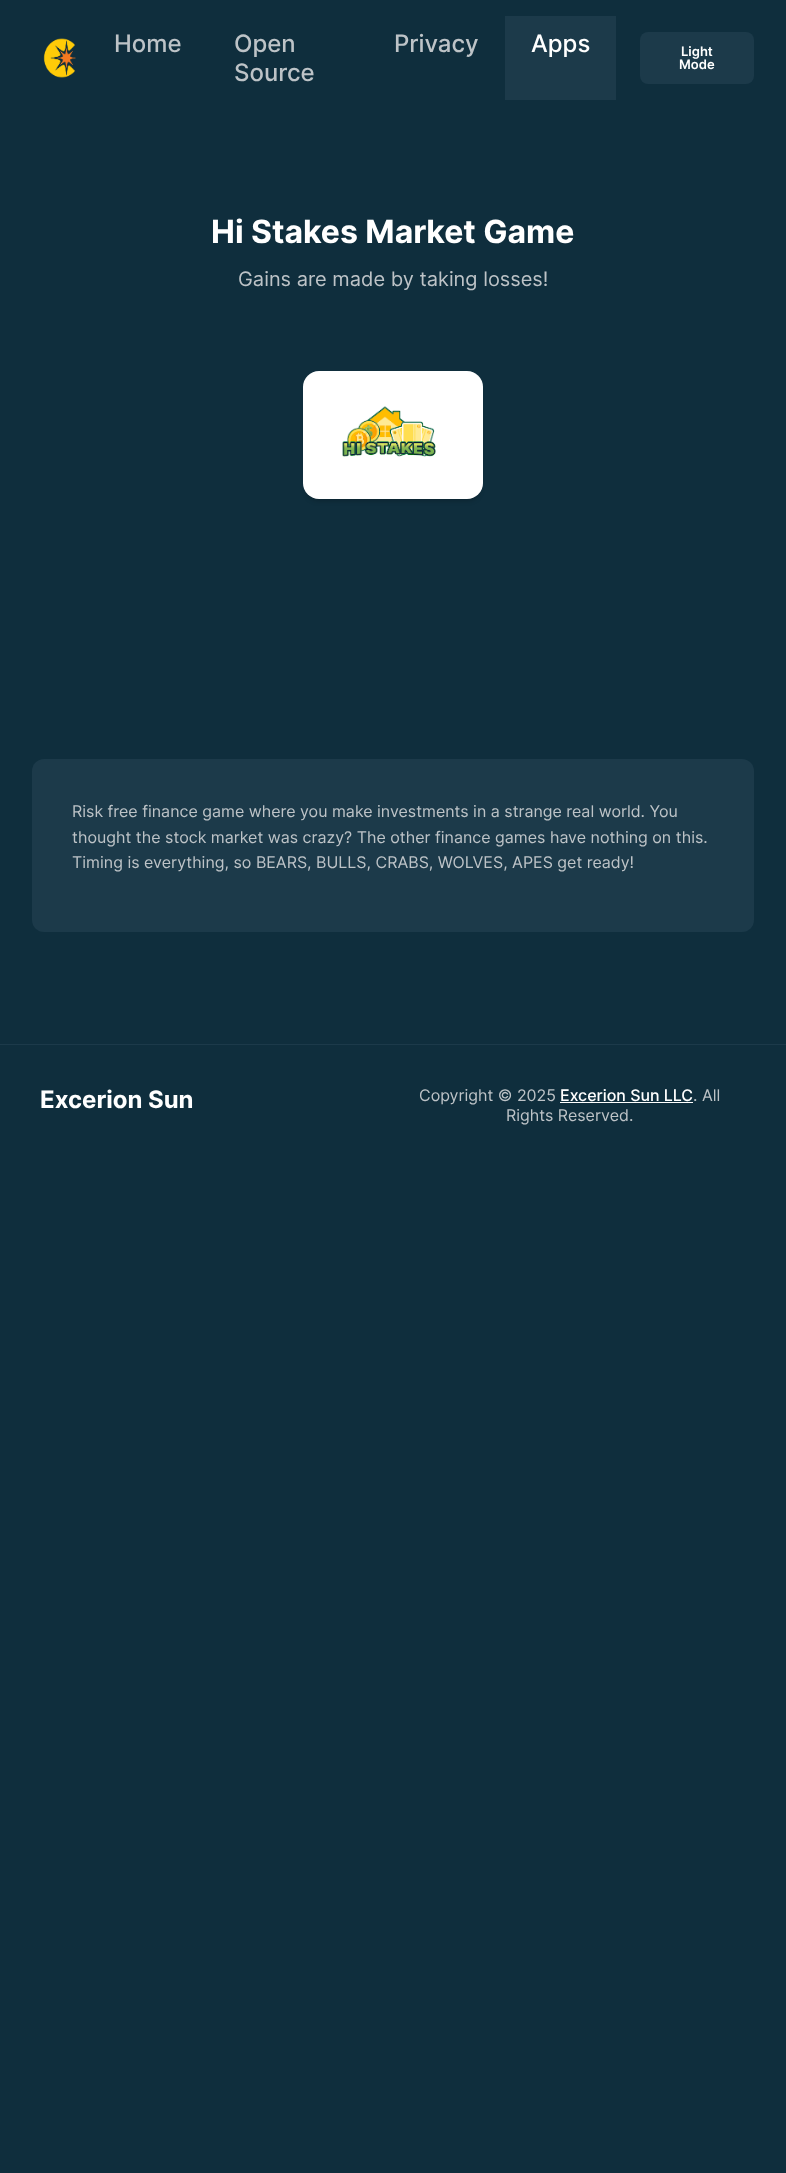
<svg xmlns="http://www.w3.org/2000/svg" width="786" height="2173">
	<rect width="100%" height="100%" fill="#0F2E3D" />
	<image x="43" y="38" width="33" height="40" href="assets/img1.png" />
	<g font-family="Inter" font-size="24" font-weight="500" fill="#BDC3C7">
		<text x="114" y="52">Home</text>
		<text x="234" y="52">Open</text>
		<text x="234" y="81">Source</text>
		<text x="394" y="52">Privacy</text>
	</g>
	<rect x="505" y="16" width="111" height="84" fill="#1C3A4A" />
	<text x="531" y="52" font-family="Inter" font-size="24" font-weight="500" fill="#FFFFFF">Apps</text>
	<rect x="640" y="32" width="114" height="52" rx="8" fill="#1C3A4A" />
	<g font-family="Inter" font-size="13" font-weight="600" fill="#FFFFFF">
		<text x="681" y="56">Light</text>
		<text x="679" y="69">Mode</text>
	</g>
	<text x="211" y="243" font-family="Inter" font-size="32" font-weight="700" fill="#FFFFFF">Hi Stakes Market Game</text>
	<text x="238" y="286" font-family="Inter" font-size="20" fill="#BDC3C7">Gains are made by taking losses!</text>
	<rect x="306" y="379" width="174" height="122" rx="13" fill="#000000" fill-opacity="0.2" filter="blur(2.5px)" />
	<image x="303" y="371" width="180" height="128" href="assets/img2.png" />
	<rect x="32" y="759" width="722" height="173" rx="12" fill="#1C3A4A" />
	<g font-family="Inter" font-size="16" fill="#BDC3C7">
		<text x="72" y="817">Risk free finance game where you make investments in a strange real world. You</text>
		<text x="72" y="843">thought the stock market was crazy? The other finance games have nothing on this.</text>
		<text x="72" y="868">Timing is everything, so BEARS, BULLS, CRABS, WOLVES, APES get ready!</text>
	</g>
	<rect x="0" y="1044" width="786" height="1" fill="#1C3A4A" />
	<text x="40" y="1108" font-family="Inter" font-size="24" font-weight="700" fill="#FFFFFF">Excerion Sun</text>
	<text x="419" y="1101" font-family="Inter" font-size="16" fill="#BDC3C7">Copyright © 2025</text>
	<text x="560" y="1101" font-family="Inter" font-size="16" font-weight="500" fill="#FFFFFF">Excerion Sun LLC</text>
	<rect x="560" y="1102" width="133" height="1" fill="#FFFFFF" />
	<g font-family="Inter" font-size="16" fill="#BDC3C7">
		<text x="693" y="1101">. All</text>
		<text x="506" y="1121">Rights Reserved.</text>
	</g>
</svg>
